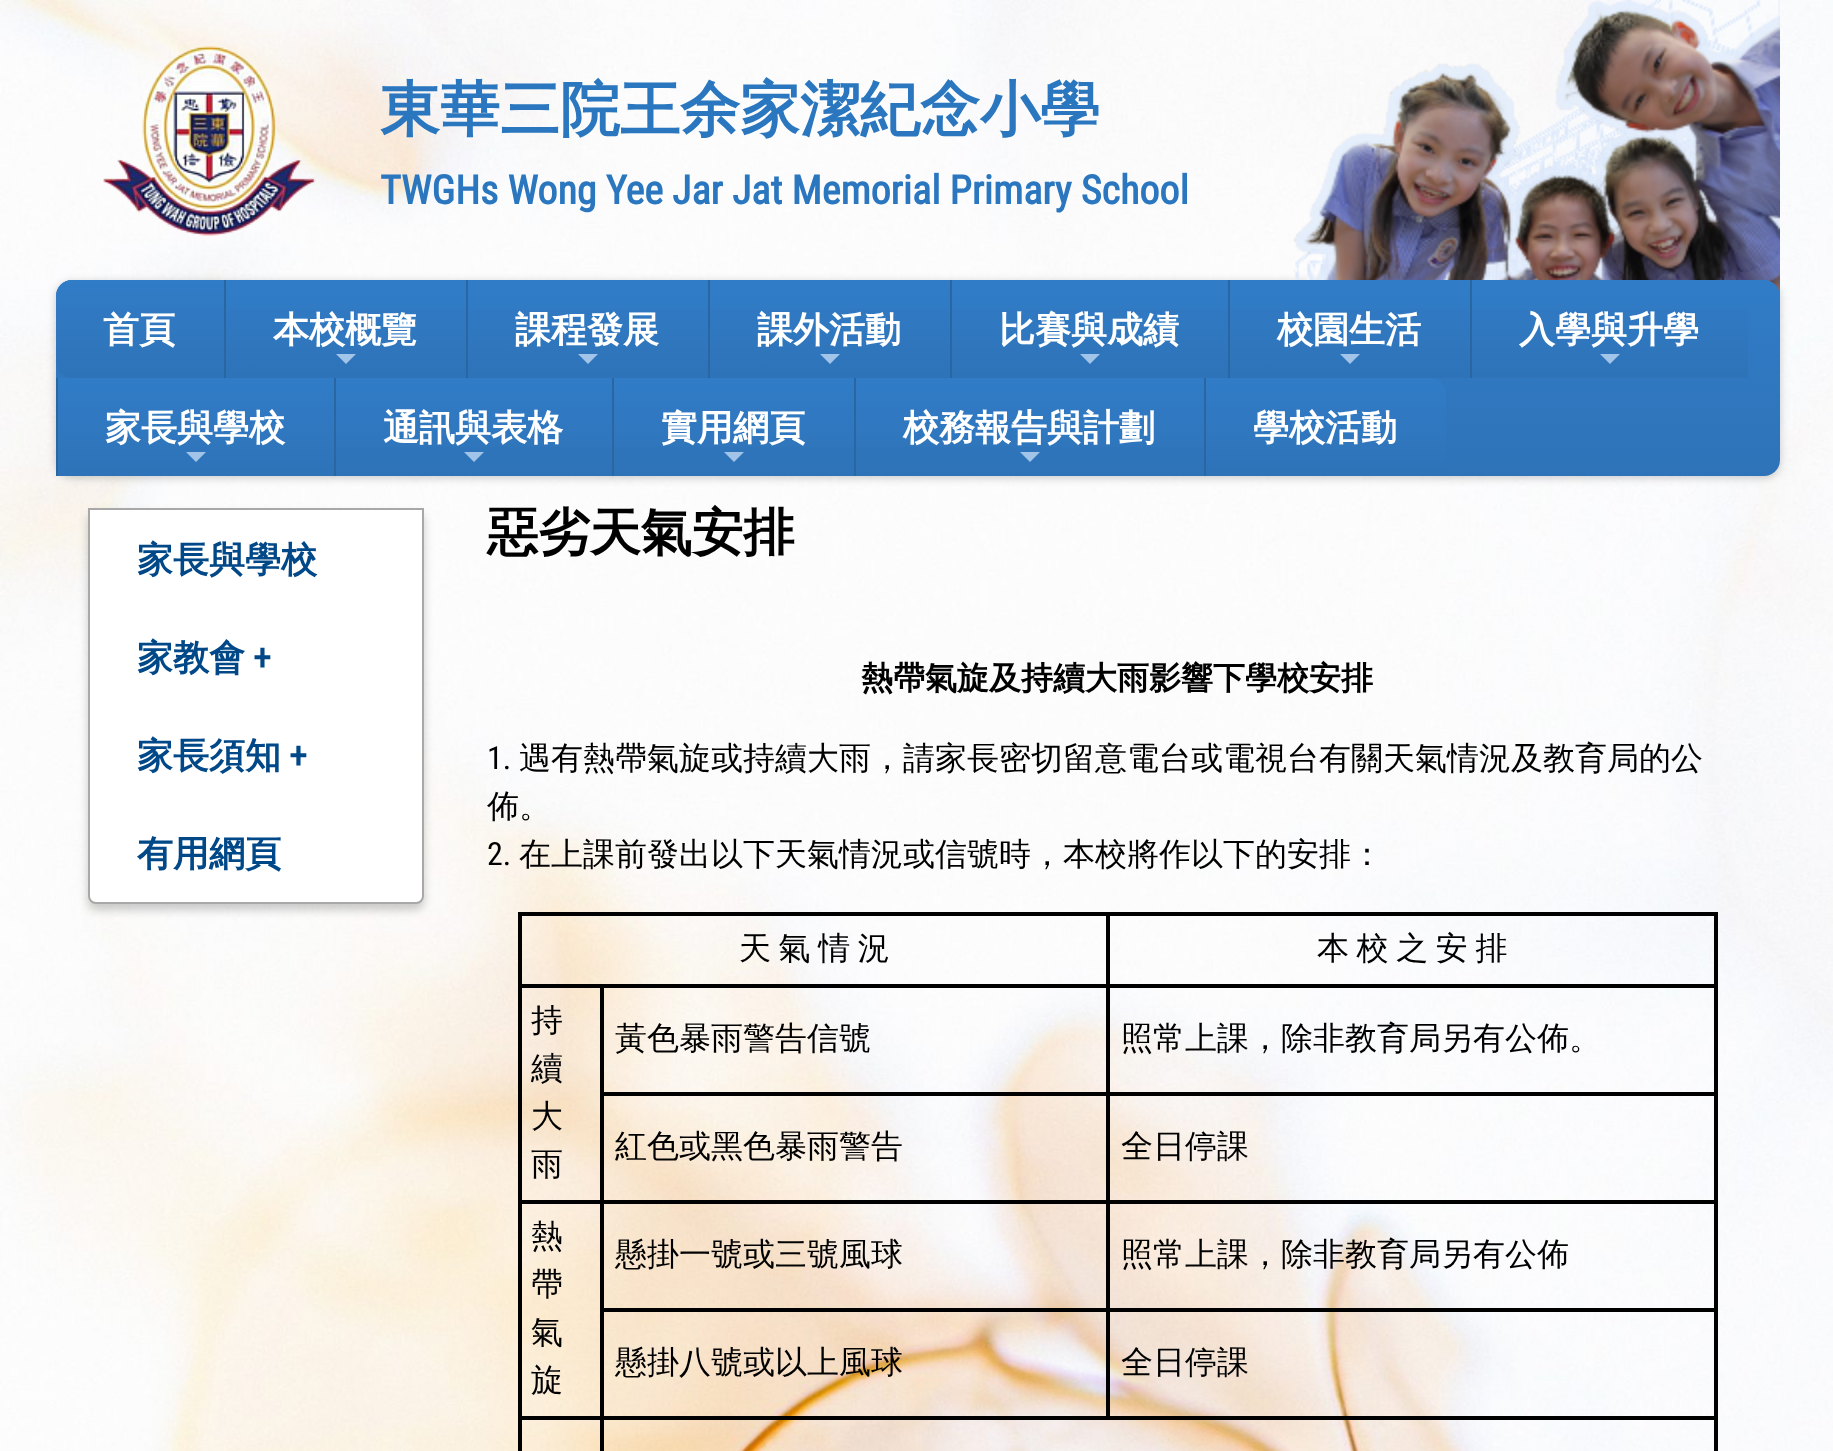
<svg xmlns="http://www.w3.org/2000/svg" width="1833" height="1451">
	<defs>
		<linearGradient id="g1" gradientUnits="userSpaceOnUse" x1="918" y1="280" x2="918" y2="476"><stop offset="0" stop-color="#317CC7" /><stop offset="1" stop-color="#2E73B8" /></linearGradient>
		<linearGradient id="g2" gradientUnits="userSpaceOnUse" x1="140" y1="280" x2="140" y2="378"><stop offset="0" stop-color="#317CC7" /><stop offset="1" stop-color="#2E73B8" /></linearGradient>
		<linearGradient id="g3" gradientUnits="userSpaceOnUse" x1="346" y1="280" x2="346" y2="378"><stop offset="0" stop-color="#317CC7" /><stop offset="1" stop-color="#2E73B8" /></linearGradient>
		<linearGradient id="g4" gradientUnits="userSpaceOnUse" x1="588" y1="280" x2="588" y2="378"><stop offset="0" stop-color="#317CC7" /><stop offset="1" stop-color="#2E73B8" /></linearGradient>
		<linearGradient id="g5" gradientUnits="userSpaceOnUse" x1="830" y1="280" x2="830" y2="378"><stop offset="0" stop-color="#317CC7" /><stop offset="1" stop-color="#2E73B8" /></linearGradient>
		<linearGradient id="g6" gradientUnits="userSpaceOnUse" x1="1090" y1="280" x2="1090" y2="378"><stop offset="0" stop-color="#317CC7" /><stop offset="1" stop-color="#2E73B8" /></linearGradient>
		<linearGradient id="g7" gradientUnits="userSpaceOnUse" x1="1350" y1="280" x2="1350" y2="378"><stop offset="0" stop-color="#317CC7" /><stop offset="1" stop-color="#2E73B8" /></linearGradient>
		<linearGradient id="g8" gradientUnits="userSpaceOnUse" x1="1610" y1="280" x2="1610" y2="378"><stop offset="0" stop-color="#317CC7" /><stop offset="1" stop-color="#2E73B8" /></linearGradient>
		<linearGradient id="g9" gradientUnits="userSpaceOnUse" x1="196" y1="378" x2="196" y2="476"><stop offset="0" stop-color="#317CC7" /><stop offset="1" stop-color="#2E73B8" /></linearGradient>
		<linearGradient id="g10" gradientUnits="userSpaceOnUse" x1="474" y1="378" x2="474" y2="476"><stop offset="0" stop-color="#317CC7" /><stop offset="1" stop-color="#2E73B8" /></linearGradient>
		<linearGradient id="g11" gradientUnits="userSpaceOnUse" x1="734" y1="378" x2="734" y2="476"><stop offset="0" stop-color="#317CC7" /><stop offset="1" stop-color="#2E73B8" /></linearGradient>
		<linearGradient id="g12" gradientUnits="userSpaceOnUse" x1="1030" y1="378" x2="1030" y2="476"><stop offset="0" stop-color="#317CC7" /><stop offset="1" stop-color="#2E73B8" /></linearGradient>
		<linearGradient id="g13" gradientUnits="userSpaceOnUse" x1="1326" y1="378" x2="1326" y2="476"><stop offset="0" stop-color="#317CC7" /><stop offset="1" stop-color="#2E73B8" /></linearGradient>
	</defs>
	<rect width="100%" height="100%" fill="#FFFFFF" />
	<image x="0" y="0" width="1833" height="1451" href="assets/img1.png" />
	<image x="103" y="46" width="213" height="190" href="assets/img2.png" />
	<text x="380" y="130" font-family="WenQuanYi Zen Hei" font-size="60" font-weight="700" fill="#2A77BF">東華三院王余家潔紀念小學</text>
	<text x="380" y="204" font-family="Roboto Condensed" font-size="40" font-weight="700" fill="#2A77BF">TWGHs Wong Yee Jar Jat Memorial Primary School</text>
	<rect x="56" y="282" width="1724" height="196" rx="16" fill="#000000" fill-opacity="0.2" filter="blur(4px)" />
	<image x="1293" y="0" width="487" height="280" href="assets/img3.png" />
	<image x="1293" y="0" width="487" height="296" href="assets/img4.png" />
	<rect x="56" y="280" width="1724" height="196" rx="16" fill="url(#g1)" />
	<path d="M72 280H224V378H72C63 378 56 371 56 362V296C56 287 63 280 72 280Z" fill="url(#g2)" />
	<text x="103" y="342" font-family="WenQuanYi Zen Hei" font-size="36" font-weight="700" fill="#FFFFFF">首頁</text>
	<rect x="224" y="280" width="2" height="98" fill="#2966A2" />
	<rect x="226" y="309" width="240" height="69" fill="url(#g3)" />
	<text x="273" y="342" font-family="WenQuanYi Zen Hei" font-size="36" font-weight="700" fill="#FFFFFF">本校概覽</text>
	<path d="M336 354H356L346 364Z" fill="#A1C4E8" />
	<rect x="466" y="280" width="2" height="98" fill="#2966A2" />
	<rect x="468" y="309" width="240" height="69" fill="url(#g4)" />
	<text x="515" y="342" font-family="WenQuanYi Zen Hei" font-size="36" font-weight="700" fill="#FFFFFF">課程發展</text>
	<path d="M578 354H598L588 364Z" fill="#A1C4E8" />
	<rect x="708" y="280" width="2" height="98" fill="#2966A2" />
	<rect x="710" y="309" width="240" height="69" fill="url(#g5)" />
	<text x="757" y="342" font-family="WenQuanYi Zen Hei" font-size="36" font-weight="700" fill="#FFFFFF">課外活動</text>
	<path d="M820 354H840L830 364Z" fill="#A1C4E8" />
	<rect x="950" y="280" width="2" height="98" fill="#2966A2" />
	<rect x="952" y="309" width="276" height="69" fill="url(#g6)" />
	<text x="999" y="342" font-family="WenQuanYi Zen Hei" font-size="36" font-weight="700" fill="#FFFFFF">比賽與成績</text>
	<path d="M1080 354H1100L1090 364Z" fill="#A1C4E8" />
	<rect x="1228" y="280" width="2" height="98" fill="#2966A2" />
	<rect x="1230" y="309" width="240" height="69" fill="url(#g7)" />
	<text x="1277" y="342" font-family="WenQuanYi Zen Hei" font-size="36" font-weight="700" fill="#FFFFFF">校園生活</text>
	<path d="M1340 354H1360L1350 364Z" fill="#A1C4E8" />
	<rect x="1470" y="280" width="2" height="98" fill="#2966A2" />
	<rect x="1472" y="309" width="276" height="69" fill="url(#g8)" />
	<text x="1519" y="342" font-family="WenQuanYi Zen Hei" font-size="36" font-weight="700" fill="#FFFFFF">入學與升學</text>
	<path d="M1600 354H1620L1610 364Z" fill="#A1C4E8" />
	<rect x="56" y="378" width="2" height="98" fill="#2966A2" />
	<rect x="58" y="378" width="276" height="98" fill="url(#g9)" />
	<text x="105" y="440" font-family="WenQuanYi Zen Hei" font-size="36" font-weight="700" fill="#FFFFFF">家長與學校</text>
	<path d="M186 452H206L196 462Z" fill="#A1C4E8" />
	<rect x="334" y="378" width="2" height="98" fill="#2966A2" />
	<rect x="336" y="378" width="276" height="69" fill="url(#g10)" />
	<text x="383" y="440" font-family="WenQuanYi Zen Hei" font-size="36" font-weight="700" fill="#FFFFFF">通訊與表格</text>
	<path d="M464 452H484L474 462Z" fill="#A1C4E8" />
	<rect x="612" y="378" width="2" height="98" fill="#2966A2" />
	<rect x="614" y="378" width="240" height="69" fill="url(#g11)" />
	<text x="661" y="440" font-family="WenQuanYi Zen Hei" font-size="36" font-weight="700" fill="#FFFFFF">實用網頁</text>
	<path d="M724 452H744L734 462Z" fill="#A1C4E8" />
	<rect x="854" y="378" width="2" height="98" fill="#2966A2" />
	<rect x="856" y="378" width="348" height="69" fill="url(#g12)" />
	<text x="903" y="440" font-family="WenQuanYi Zen Hei" font-size="36" font-weight="700" fill="#FFFFFF">校務報告與計劃</text>
	<path d="M1020 452H1040L1030 462Z" fill="#A1C4E8" />
	<rect x="1204" y="378" width="2" height="98" fill="#2966A2" />
	<path d="M1206 378H1430C1439 378 1446 385 1446 394V460C1446 469 1439 476 1430 476H1206Z" fill="url(#g13)" />
	<text x="1253" y="440" font-family="WenQuanYi Zen Hei" font-size="36" font-weight="700" fill="#FFFFFF">學校活動</text>
	<text x="487" y="550" font-family="WenQuanYi Zen Hei" font-size="51.25" font-weight="700" fill="#000000">惡劣天氣安排</text>
	<rect x="88" y="514" width="336" height="396" rx="8" fill="#000000" fill-opacity="0.2" filter="blur(5px)" />
	<path d="M89 509H423V896C423 900 420 903 416 903H96C92 903 89 900 89 896Z" fill="#FFFFFF" stroke="#A8A8A8" stroke-width="2" />
	<g font-family="WenQuanYi Zen Hei" font-size="36" font-weight="700" fill="#004887">
		<text x="137" y="572">家長與學校</text>
		<text x="137" y="670">家教會</text>
	</g>
	<text x="253" y="670" font-family="Roboto Condensed" font-size="36" font-weight="700" fill="#004887">+</text>
	<text x="137" y="768" font-family="WenQuanYi Zen Hei" font-size="36" font-weight="700" fill="#004887">家長須知</text>
	<text x="289" y="768" font-family="Roboto Condensed" font-size="36" font-weight="700" fill="#004887">+</text>
	<text x="137" y="866" font-family="WenQuanYi Zen Hei" font-size="36" font-weight="700" fill="#004887">有用網頁</text>
	<text x="861" y="689" font-family="WenQuanYi Zen Hei" font-size="32" font-weight="700" fill="#000000">熱帶氣旋及持續大雨影響下學校安排</text>
	<text x="487" y="769" font-family="Roboto Condensed" font-size="32" fill="#000000">1.</text>
	<g font-family="WenQuanYi Zen Hei" font-size="32" font-weight="500" fill="#000000">
		<text x="519" y="769">遇有熱帶氣旋或持續大雨，請家長密切留意電台或電視台有關天氣情況及教育局的公</text>
		<text x="487" y="817">佈。</text>
	</g>
	<text x="487" y="865" font-family="Roboto Condensed" font-size="32" fill="#000000">2.</text>
	<text x="519" y="865" font-family="WenQuanYi Zen Hei" font-size="32" font-weight="500" fill="#000000">在上課前發出以下天氣情況或信號時，本校將作以下的安排：</text>
	<rect x="519" y="913" width="1198" height="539" fill="none" stroke="#000000" stroke-width="2" />
	<rect x="521" y="915" width="586" height="70" fill="none" stroke="#000000" stroke-width="2" />
	<text x="739" y="959" word-spacing="-2" font-family="WenQuanYi Zen Hei" font-size="32" font-weight="500" fill="#000000">天 氣 情 況</text>
	<rect x="1109" y="915" width="606" height="70" fill="none" stroke="#000000" stroke-width="2" />
	<text x="1317" y="959" word-spacing="-2" font-family="WenQuanYi Zen Hei" font-size="32" font-weight="500" fill="#000000">本 校 之 安 排</text>
	<rect x="521" y="987" width="80" height="214" fill="none" stroke="#000000" stroke-width="2" />
	<g font-family="WenQuanYi Zen Hei" font-size="32" font-weight="500" fill="#000000">
		<text x="531" y="1031">持</text>
		<text x="531" y="1079">續</text>
		<text x="531" y="1127">大</text>
		<text x="531" y="1175">雨</text>
	</g>
	<rect x="603" y="987" width="504" height="106" fill="none" stroke="#000000" stroke-width="2" />
	<text x="615" y="1049" font-family="WenQuanYi Zen Hei" font-size="32" font-weight="500" fill="#000000">黃色暴雨警告信號</text>
	<rect x="1109" y="987" width="606" height="106" fill="none" stroke="#000000" stroke-width="2" />
	<text x="1121" y="1049" font-family="WenQuanYi Zen Hei" font-size="32" font-weight="500" fill="#000000">照常上課，除非教育局另有公佈。</text>
	<rect x="603" y="1095" width="504" height="106" fill="none" stroke="#000000" stroke-width="2" />
	<text x="615" y="1157" font-family="WenQuanYi Zen Hei" font-size="32" font-weight="500" fill="#000000">紅色或黑色暴雨警告</text>
	<rect x="1109" y="1095" width="606" height="106" fill="none" stroke="#000000" stroke-width="2" />
	<text x="1121" y="1157" font-family="WenQuanYi Zen Hei" font-size="32" font-weight="500" fill="#000000">全日停課</text>
	<rect x="521" y="1203" width="80" height="214" fill="none" stroke="#000000" stroke-width="2" />
	<g font-family="WenQuanYi Zen Hei" font-size="32" font-weight="500" fill="#000000">
		<text x="531" y="1247">熱</text>
		<text x="531" y="1295">帶</text>
		<text x="531" y="1343">氣</text>
		<text x="531" y="1391">旋</text>
	</g>
	<rect x="603" y="1203" width="504" height="106" fill="none" stroke="#000000" stroke-width="2" />
	<text x="615" y="1265" font-family="WenQuanYi Zen Hei" font-size="32" font-weight="500" fill="#000000">懸掛一號或三號風球</text>
	<rect x="1109" y="1203" width="606" height="106" fill="none" stroke="#000000" stroke-width="2" />
	<text x="1121" y="1265" font-family="WenQuanYi Zen Hei" font-size="32" font-weight="500" fill="#000000">照常上課，除非教育局另有公佈</text>
	<rect x="603" y="1311" width="504" height="106" fill="none" stroke="#000000" stroke-width="2" />
	<text x="615" y="1373" font-family="WenQuanYi Zen Hei" font-size="32" font-weight="500" fill="#000000">懸掛八號或以上風球</text>
	<rect x="1109" y="1311" width="606" height="106" fill="none" stroke="#000000" stroke-width="2" />
	<text x="1121" y="1373" font-family="WenQuanYi Zen Hei" font-size="32" font-weight="500" fill="#000000">全日停課</text>
	<rect x="521" y="1419" width="80" height="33" fill="none" stroke="#000000" stroke-width="2" />
	<rect x="603" y="1419" width="1112" height="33" fill="none" stroke="#000000" stroke-width="2" />
</svg>
